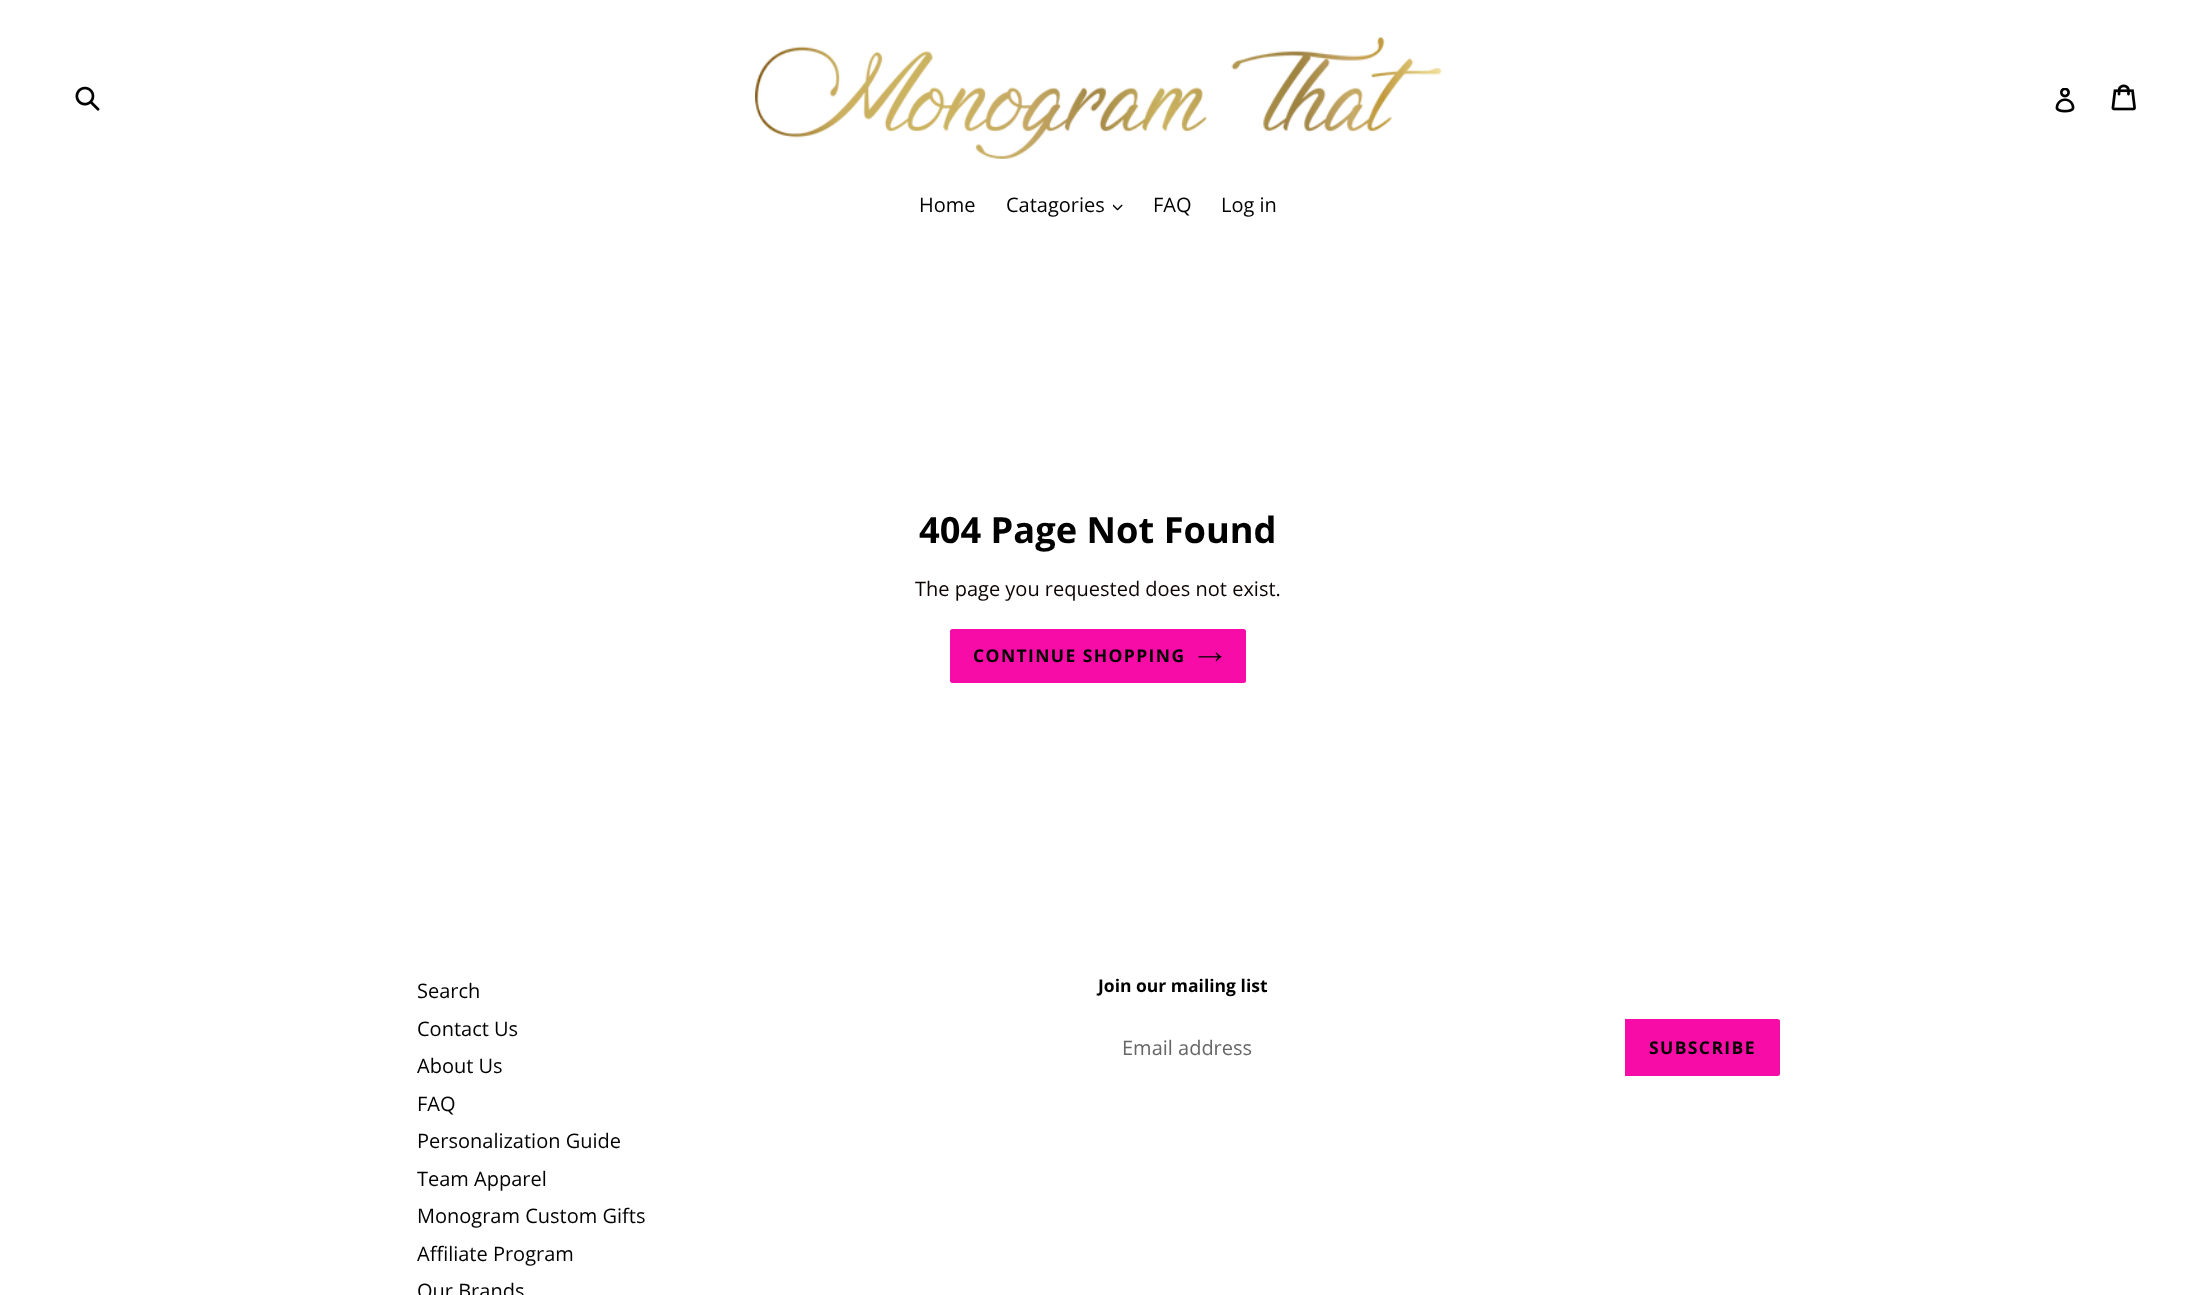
<svg xmlns="http://www.w3.org/2000/svg" width="2196" height="1295">
	<rect width="100%" height="100%" fill="#FFFFFF" />
	<image x="75" y="86" width="25" height="25" href="assets/img1.png" />
	<image x="755" y="37" width="687" height="122" href="assets/img2.png" />
	<image x="2055" y="88" width="20" height="25" href="assets/img3.png" />
	<image x="2111" y="84" width="25" height="27" href="assets/img4.png" />
	<g font-family="Open Sans" font-size="20" fill="#000000">
		<text x="919" y="212">Home</text>
		<text x="1006" y="212">Catagories</text>
	</g>
	<image x="1113" y="204" width="10" height="7" href="assets/img5.png" />
	<g font-family="Open Sans" font-size="20" fill="#000000">
		<text x="1153" y="212">FAQ</text>
		<text x="1221" y="212">Log in</text>
	</g>
	<text x="919" y="543" font-family="Open Sans" font-size="36.25" font-weight="700" fill="#000000">404 Page Not Found</text>
	<text x="915" y="596" font-family="Open Sans" font-size="20" fill="#0D0202">The page you requested does not exist.</text>
	<rect x="950" y="629" width="296" height="54" rx="2.5" fill="#F70CA7" />
	<text x="973" y="662" font-family="Open Sans" font-size="17.5" font-weight="700" letter-spacing="1.4" fill="#000000">CONTINUE SHOPPING</text>
	<image x="1198" y="652" width="24" height="10" href="assets/img6.png" />
	<g font-family="Open Sans" font-size="20" fill="#000000">
		<text x="417" y="998">Search</text>
		<text x="417" y="1036">Contact Us</text>
		<text x="417" y="1073">About Us</text>
		<text x="417" y="1111">FAQ</text>
		<text x="417" y="1148">Personalization Guide</text>
		<text x="417" y="1186">Team Apparel</text>
		<text x="417" y="1223">Monogram Custom Gifts</text>
		<text x="417" y="1261">Affiliate Program</text>
		<text x="417" y="1298">Our Brands</text>
	</g>
	<text x="1098" y="992" font-family="Open Sans" font-size="17.5" font-weight="700" fill="#000000">Join our mailing list</text>
	<text x="1122" y="1055" font-family="Open Sans" font-size="20" fill="#666666">Email address</text>
	<path d="M1625 1019H1777.5C1779 1019 1780 1020 1780 1021.5V1073.5C1780 1075 1779 1076 1777.5 1076H1625Z" fill="#F70CA7" />
	<text x="1649" y="1054" font-family="Open Sans" font-size="17.5" font-weight="700" letter-spacing="1.4" fill="#000000">SUBSCRIBE</text>
</svg>
